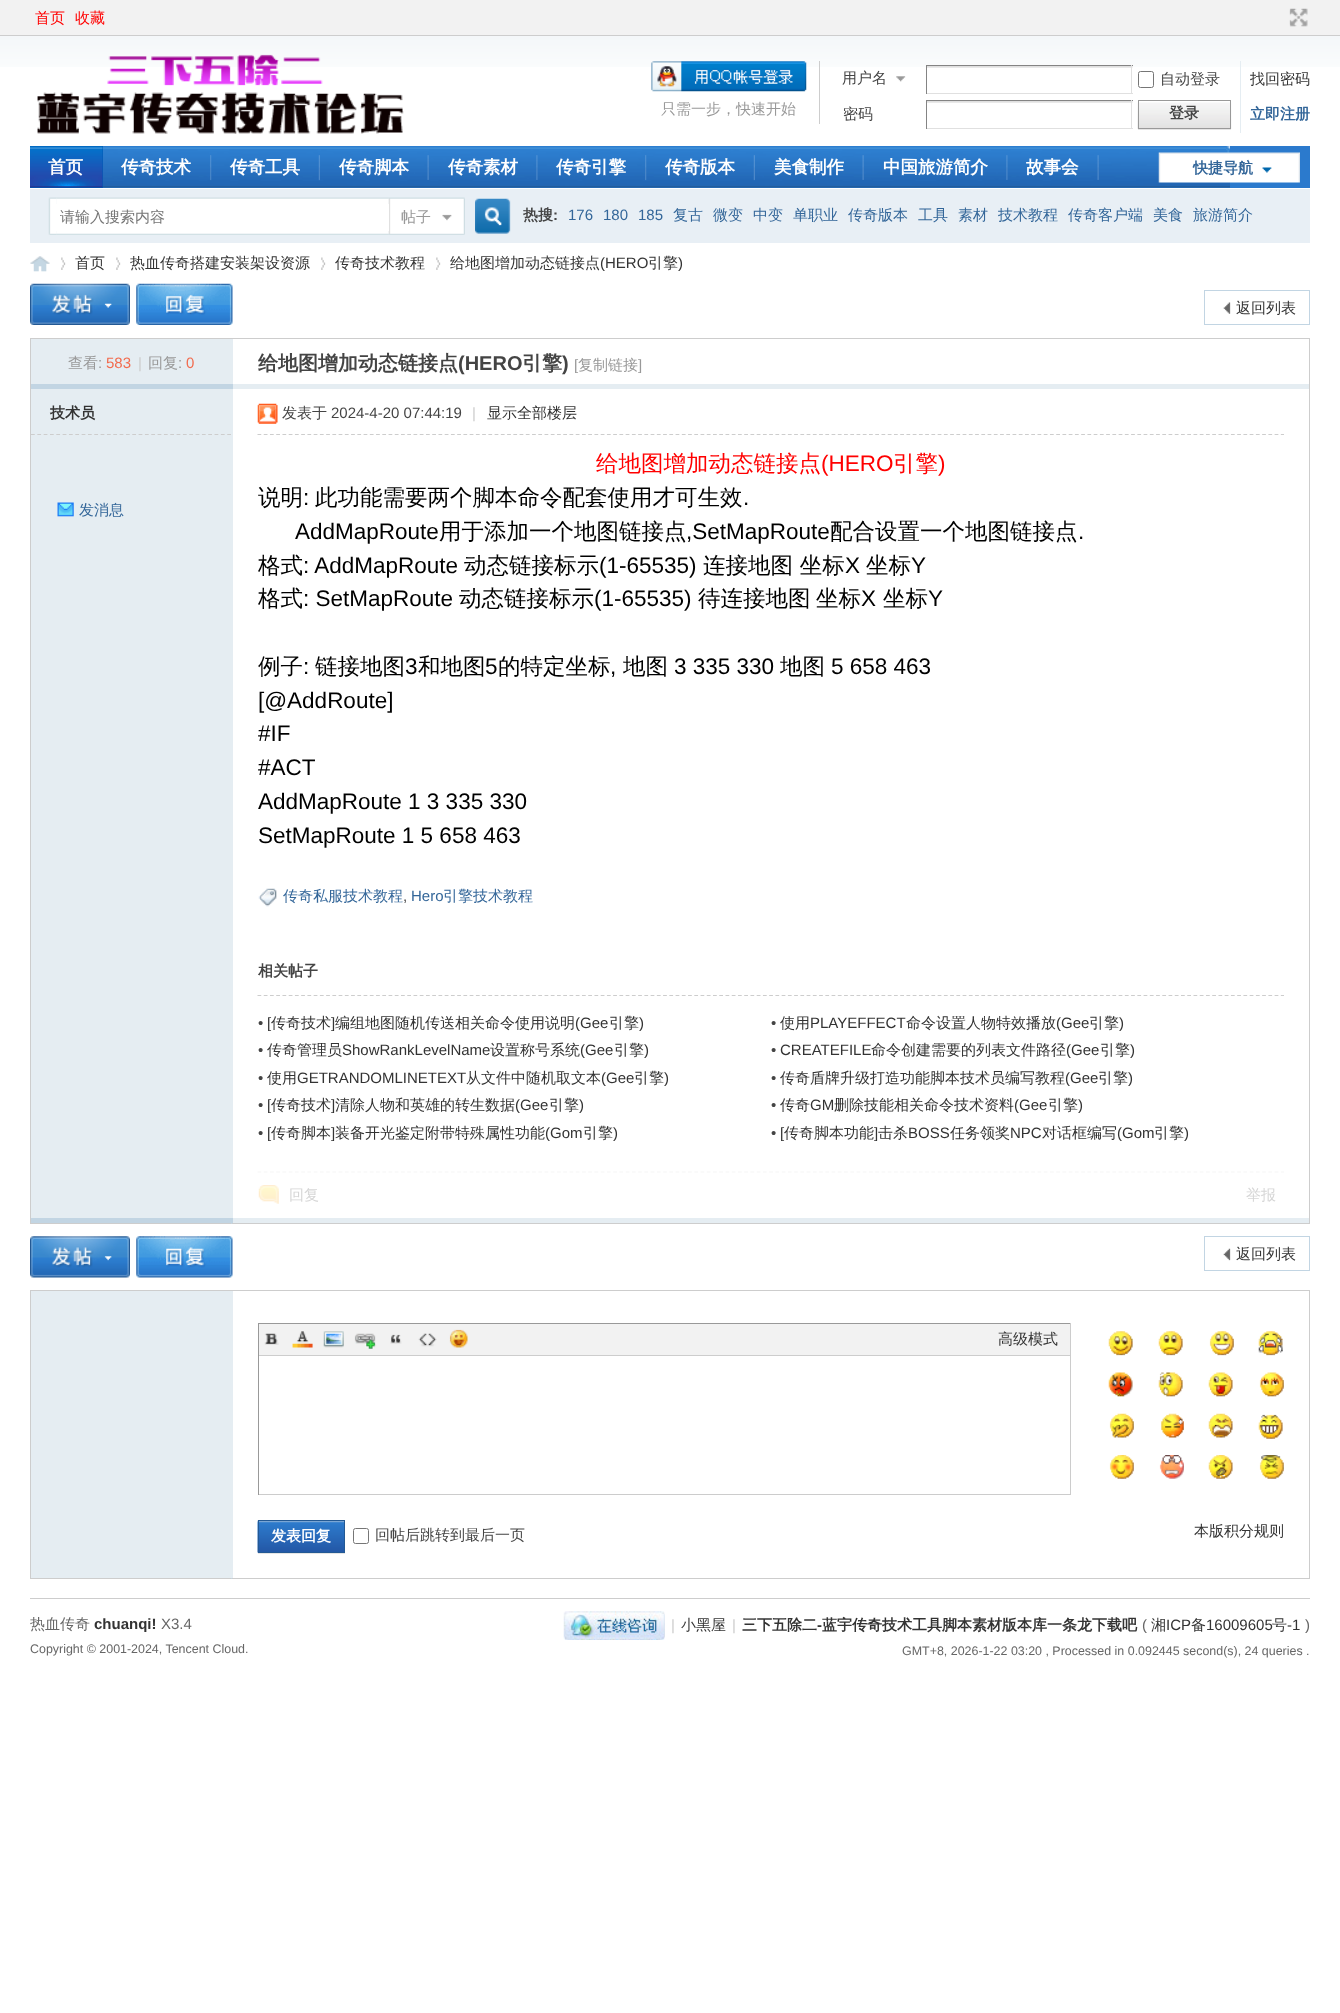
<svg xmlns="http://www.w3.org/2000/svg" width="1340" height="2013">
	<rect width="100%" height="100%" fill="#FFFFFF" />
	<image x="0" y="36" width="1340" height="31" href="assets/img1.png" />
	<rect x="0" y="0" width="1340" height="35" fill="#F2F2F2" />
	<rect x="0" y="35" width="1340" height="1" fill="#CDCDCD" />
	<g font-family="WenQuanYi Zen Hei" font-size="15" font-weight="500" fill="#FF0000">
		<text x="35" y="23">首页</text>
		<text x="75" y="23">收藏</text>
	</g>
	<image x="1289" y="8" width="19" height="19" href="assets/img2.png" />
	<image x="37" y="54" width="367" height="80" href="assets/img3.png" />
	<rect x="819" y="61" width="1" height="63" fill="#CDCDCD" />
	<image x="651" y="61" width="156" height="31" href="assets/img4.png" />
	<text x="661" y="114" font-family="WenQuanYi Zen Hei" font-size="15" font-weight="500" fill="#999999">只需一步，快速开始</text>
	<image x="896" y="76" width="10" height="6" href="assets/img5.png" />
	<text x="842" y="83" font-family="WenQuanYi Zen Hei" font-size="15" font-weight="500" fill="#444444">用户名</text>
	<rect x="927" y="66" width="206" height="1" fill="#FFFFFF" />
	<image x="927" y="66" width="206" height="2" href="assets/img6.png" />
	<rect x="926" y="65" width="207" height="1" fill="#848484" />
	<rect x="1131" y="65" width="1" height="29" fill="#E0E0E0" />
	<rect x="926" y="93" width="207" height="1" fill="#E0E0E0" />
	<rect x="926" y="65" width="1" height="29" fill="#848484" />
	<rect x="1138.5" y="71.5" width="15" height="16" rx="2" fill="none" stroke="#767676" />
	<text x="1160" y="84" font-family="WenQuanYi Zen Hei" font-size="15" font-weight="500" fill="#444444">自动登录</text>
	<text x="1250" y="84" font-family="WenQuanYi Zen Hei" font-size="15" font-weight="500" fill="#333333">找回密码</text>
	<text x="843" y="119" font-family="WenQuanYi Zen Hei" font-size="15" font-weight="500" fill="#444444">密码</text>
	<image x="927" y="101" width="206" height="2" href="assets/img6.png" />
	<rect x="926" y="100" width="207" height="1" fill="#848484" />
	<rect x="1131" y="100" width="1" height="29" fill="#E0E0E0" />
	<rect x="926" y="128" width="207" height="1" fill="#E0E0E0" />
	<rect x="926" y="100" width="1" height="29" fill="#848484" />
	<rect x="1240" y="61" width="1" height="72" fill="#E5EDF2" />
	<rect x="1138" y="129" width="93" height="1" fill="#E5E5E5" />
	<image x="1137" y="101" width="95" height="28" href="assets/img7.png" />
	<rect x="1138.5" y="100.5" width="92" height="28" fill="none" stroke="#999999" />
	<text x="1169" y="118" font-family="WenQuanYi Zen Hei" font-size="15" font-weight="700" fill="#444444">登录</text>
	<text x="1250" y="119" font-family="WenQuanYi Zen Hei" font-size="15" font-weight="700" fill="#336699">立即注册</text>
	<rect x="103" y="146" width="1207" height="42" fill="#2B7ACD" />
	<image x="103" y="146" width="1127" height="42" href="assets/img8.png" />
	<rect x="30" y="146" width="73" height="42" fill="#005AB4" />
	<image x="30" y="146" width="73" height="42" href="assets/img9.png" />
	<text x="48" y="173" font-family="WenQuanYi Zen Hei" font-size="17.5" font-weight="700" fill="#FFFFFF">首页</text>
	<image x="210" y="155" width="2" height="26" href="assets/img10.png" />
	<text x="121" y="173" font-family="WenQuanYi Zen Hei" font-size="17.5" font-weight="700" fill="#FFFFFF">传奇技术</text>
	<image x="318" y="155" width="2" height="26" href="assets/img11.png" />
	<text x="230" y="173" font-family="WenQuanYi Zen Hei" font-size="17.5" font-weight="700" fill="#FFFFFF">传奇工具</text>
	<image x="427" y="155" width="2" height="25" href="assets/img12.png" />
	<text x="339" y="173" font-family="WenQuanYi Zen Hei" font-size="17.5" font-weight="700" fill="#FFFFFF">传奇脚本</text>
	<image x="536" y="155" width="2" height="25" href="assets/img13.png" />
	<text x="448" y="173" font-family="WenQuanYi Zen Hei" font-size="17.5" font-weight="700" fill="#FFFFFF">传奇素材</text>
	<image x="645" y="155" width="2" height="26" href="assets/img14.png" />
	<text x="556" y="173" font-family="WenQuanYi Zen Hei" font-size="17.5" font-weight="700" fill="#FFFFFF">传奇引擎</text>
	<image x="753" y="155" width="2" height="26" href="assets/img15.png" />
	<text x="665" y="173" font-family="WenQuanYi Zen Hei" font-size="17.5" font-weight="700" fill="#FFFFFF">传奇版本</text>
	<image x="862" y="155" width="2" height="25" href="assets/img16.png" />
	<text x="774" y="173" font-family="WenQuanYi Zen Hei" font-size="17.5" font-weight="700" fill="#FFFFFF">美食制作</text>
	<image x="1006" y="155" width="2" height="25" href="assets/img17.png" />
	<text x="883" y="173" font-family="WenQuanYi Zen Hei" font-size="17.5" font-weight="700" fill="#FFFFFF">中国旅游简介</text>
	<image x="1097" y="155" width="2" height="25" href="assets/img18.png" />
	<text x="1026" y="173" font-family="WenQuanYi Zen Hei" font-size="17.5" font-weight="700" fill="#FFFFFF">故事会</text>
	<image x="1158" y="152" width="142" height="31" href="assets/img19.png" />
	<text x="1193" y="173" font-family="WenQuanYi Zen Hei" font-size="15" font-weight="700" fill="#336699">快捷导航</text>
	<rect x="30" y="189" width="1280" height="54" fill="#E8EFF5" />
	<image x="48" y="197" width="9" height="38" href="assets/img20.png" />
	<image x="56" y="197" width="333" height="38" href="assets/img21.png" />
	<image x="388" y="197" width="77" height="38" href="assets/img22.png" />
	<rect x="56" y="204" width="333" height="27" fill="#FFFFFF" />
	<text x="60" y="222" font-family="WenQuanYi Zen Hei" font-size="15" font-weight="500" fill="#757575">请输入搜索内容</text>
	<text x="401" y="222" font-family="WenQuanYi Zen Hei" font-size="15" font-weight="500" fill="#999999">帖子</text>
	<image x="475" y="198" width="36" height="36" href="assets/img23.png" />
	<text x="523" y="220" font-family="WenQuanYi Zen Hei" font-size="15" font-weight="700" fill="#444444">热搜</text>
	<text x="553" y="220" font-family="Liberation Sans" font-size="15" font-weight="700" fill="#444444">:</text>
	<g font-family="Liberation Sans" font-size="15" fill="#336699">
		<text x="568" y="220">176</text>
		<text x="603" y="220">180</text>
		<text x="638" y="220">185</text>
	</g>
	<g font-family="WenQuanYi Zen Hei" font-size="15" font-weight="500" fill="#336699">
		<text x="673" y="220">复古</text>
		<text x="713" y="220">微变</text>
		<text x="753" y="220">中变</text>
		<text x="793" y="220">单职业</text>
		<text x="848" y="220">传奇版本</text>
		<text x="918" y="220">工具</text>
		<text x="958" y="220">素材</text>
		<text x="998" y="220">技术教程</text>
		<text x="1068" y="220">传奇客户端</text>
		<text x="1153" y="220">美食</text>
		<text x="1193" y="220">旅游简介</text>
	</g>
	<image x="30" y="256" width="20" height="16" href="assets/img24.png" />
	<image x="61" y="257" width="5" height="13" href="assets/img25.png" />
	<text x="75" y="268" font-family="WenQuanYi Zen Hei" font-size="15" font-weight="500" fill="#333333">首页</text>
	<image x="116" y="257" width="5" height="13" href="assets/img26.png" />
	<text x="130" y="268" font-family="WenQuanYi Zen Hei" font-size="15" font-weight="500" fill="#333333">热血传奇搭建安装架设资源</text>
	<image x="321" y="257" width="5" height="13" href="assets/img25.png" />
	<text x="335" y="268" font-family="WenQuanYi Zen Hei" font-size="15" font-weight="500" fill="#333333">传奇技术教程</text>
	<image x="436" y="257" width="5" height="13" href="assets/img25.png" />
	<text x="450" y="268" font-family="WenQuanYi Zen Hei" font-size="15" font-weight="500" fill="#333333">给地图增加动态链接点</text>
	<text x="600" y="268" font-family="Liberation Sans" font-size="15" fill="#333333">(HERO</text>
	<text x="648" y="268" font-family="WenQuanYi Zen Hei" font-size="15" font-weight="500" fill="#333333">引擎</text>
	<text x="678" y="268" font-family="Liberation Sans" font-size="15" fill="#333333">)</text>
	<image x="30" y="283" width="100" height="42" href="assets/img27.png" />
	<image x="136" y="283" width="97" height="42" href="assets/img28.png" />
	<image x="1223" y="302" width="8" height="12" href="assets/img29.png" />
	<rect x="1204.5" y="290.5" width="105" height="34" fill="none" stroke="#C2D5E3" />
	<text x="1236" y="313" font-family="WenQuanYi Zen Hei" font-size="15" font-weight="500" fill="#333333">返回列表</text>
	<rect x="30.5" y="338.5" width="1279" height="885" fill="none" stroke="#CDCDCD" />
	<rect x="31" y="339" width="202" height="45" fill="#E5EDF2" />
	<text x="68" y="368" font-family="WenQuanYi Zen Hei" font-size="15" font-weight="500" fill="#999999">查看</text>
	<text x="98" y="368" font-family="Liberation Sans" font-size="15" fill="#999999">:</text>
	<text x="106" y="368" font-family="Liberation Sans" font-size="15" fill="#F26C4F">583</text>
	<text x="138" y="368" font-family="Liberation Sans" font-size="15" fill="#CCCCCC">|</text>
	<text x="148" y="368" font-family="WenQuanYi Zen Hei" font-size="15" font-weight="500" fill="#999999">回复</text>
	<text x="178" y="368" font-family="Liberation Sans" font-size="15" fill="#999999">:</text>
	<text x="186" y="368" font-family="Liberation Sans" font-size="15" fill="#F26C4F">0</text>
	<text x="258" y="370" font-family="WenQuanYi Zen Hei" font-size="20" font-weight="700" fill="#444444">给地图增加动态链接点</text>
	<text x="458" y="370" font-family="Liberation Sans" font-size="20" font-weight="700" fill="#444444">(HERO</text>
	<text x="522" y="370" font-family="WenQuanYi Zen Hei" font-size="20" font-weight="700" fill="#444444">引擎</text>
	<text x="562" y="370" font-family="Liberation Sans" font-size="20" font-weight="700" fill="#444444">)</text>
	<text x="574" y="370" font-family="Liberation Sans" font-size="15" fill="#999999">[</text>
	<text x="578" y="370" font-family="WenQuanYi Zen Hei" font-size="15" font-weight="500" fill="#999999">复制链接</text>
	<text x="638" y="370" font-family="Liberation Sans" font-size="15" fill="#999999">]</text>
	<rect x="31" y="384" width="202" height="5" fill="#C2D5E3" />
	<rect x="233" y="384" width="1076" height="5" fill="#E5EDF2" />
	<rect x="31" y="389" width="202" height="829" fill="#E5EDF2" />
	<path d="M31 434.5H231" fill="none" stroke="#CDCDCD" stroke-width="1.2" stroke-dasharray="3.75 2.58" />
	<text x="50" y="418" font-family="WenQuanYi Zen Hei" font-size="15" font-weight="700" fill="#333333">技术员</text>
	<image x="57" y="502" width="17" height="15" href="assets/img30.png" />
	<text x="79" y="515" font-family="WenQuanYi Zen Hei" font-size="15" font-weight="500" fill="#336699">发消息</text>
	<path d="M257.5 434.5H1284" fill="none" stroke="#CDCDCD" stroke-width="1.2" stroke-dasharray="3.75 2.49" />
	<image x="257" y="403" width="21" height="21" href="assets/img31.png" />
	<text x="282" y="418" font-family="WenQuanYi Zen Hei" font-size="15" font-weight="500" fill="#444444">发表于</text>
	<text x="331" y="418" font-family="Liberation Sans" font-size="15" fill="#444444">2024-4-20 07:44:19</text>
	<text x="472" y="418" font-family="Liberation Sans" font-size="15" fill="#CCCCCC">|</text>
	<text x="487" y="418" font-family="WenQuanYi Zen Hei" font-size="15" font-weight="500" fill="#333333">显示全部楼层</text>
	<text x="596" y="471" font-family="WenQuanYi Zen Hei" font-size="22.5" font-weight="500" fill="#FF0000">给地图增加动态链接点</text>
	<text x="821" y="471" font-family="Liberation Sans" font-size="22.5" fill="#FF0000">(HERO</text>
	<text x="893" y="471" font-family="WenQuanYi Zen Hei" font-size="22.5" font-weight="500" fill="#FF0000">引擎</text>
	<text x="938" y="471" font-family="Liberation Sans" font-size="22.5" fill="#FF0000">)</text>
	<text x="258" y="505" font-family="WenQuanYi Zen Hei" font-size="22.5" font-weight="500" fill="#000000">说明</text>
	<text x="303" y="505" font-family="Liberation Sans" font-size="22.5" fill="#000000">:</text>
	<text x="315" y="505" font-family="WenQuanYi Zen Hei" font-size="22.5" font-weight="500" fill="#000000">此功能需要两个脚本命令配套使用才可生效</text>
	<g font-family="Liberation Sans" font-size="22.5" fill="#000000">
		<text x="743" y="505">.</text>
		<text x="295" y="539">AddMapRoute</text>
	</g>
	<text x="439" y="539" font-family="WenQuanYi Zen Hei" font-size="22.5" font-weight="500" fill="#000000">用于添加一个地图链接点</text>
	<text x="686" y="539" font-family="Liberation Sans" font-size="22.5" fill="#000000">,SetMapRoute</text>
	<text x="830" y="539" font-family="WenQuanYi Zen Hei" font-size="22.5" font-weight="500" fill="#000000">配合设置一个地图链接点</text>
	<text x="1078" y="539" font-family="Liberation Sans" font-size="22.5" fill="#000000">.</text>
	<text x="258" y="573" font-family="WenQuanYi Zen Hei" font-size="22.5" font-weight="500" fill="#000000">格式</text>
	<text x="303" y="573" font-family="Liberation Sans" font-size="22.5" fill="#000000">: AddMapRoute</text>
	<text x="464" y="573" font-family="WenQuanYi Zen Hei" font-size="22.5" font-weight="500" fill="#000000">动态链接标示</text>
	<text x="599" y="573" font-family="Liberation Sans" font-size="22.5" fill="#000000">(1-65535)</text>
	<text x="703" y="573" font-family="WenQuanYi Zen Hei" font-size="22.5" font-weight="500" fill="#000000">连接地图 坐标</text>
	<text x="845" y="573" font-family="Liberation Sans" font-size="22.5" fill="#000000">X</text>
	<text x="866" y="573" font-family="WenQuanYi Zen Hei" font-size="22.5" font-weight="500" fill="#000000">坐标</text>
	<text x="911" y="573" font-family="Liberation Sans" font-size="22.5" fill="#000000">Y</text>
	<text x="258" y="606" font-family="WenQuanYi Zen Hei" font-size="22.5" font-weight="500" fill="#000000">格式</text>
	<text x="303" y="606" font-family="Liberation Sans" font-size="22.5" fill="#000000">: SetMapRoute</text>
	<text x="459" y="606" font-family="WenQuanYi Zen Hei" font-size="22.5" font-weight="500" fill="#000000">动态链接标示</text>
	<text x="594" y="606" font-family="Liberation Sans" font-size="22.5" fill="#000000">(1-65535)</text>
	<g font-family="WenQuanYi Zen Hei" font-size="22.5" font-weight="500" fill="#000000">
		<text x="698" y="606">待连接地图</text>
		<text x="816" y="606">坐标</text>
	</g>
	<text x="861" y="606" font-family="Liberation Sans" font-size="22.5" fill="#000000">X</text>
	<text x="883" y="606" font-family="WenQuanYi Zen Hei" font-size="22.5" font-weight="500" fill="#000000">坐标</text>
	<text x="928" y="606" font-family="Liberation Sans" font-size="22.5" fill="#000000">Y</text>
	<text x="258" y="674" font-family="WenQuanYi Zen Hei" font-size="22.5" font-weight="500" fill="#000000">例子</text>
	<text x="303" y="674" font-family="Liberation Sans" font-size="22.5" fill="#000000">:</text>
	<text x="315" y="674" font-family="WenQuanYi Zen Hei" font-size="22.5" font-weight="500" fill="#000000">链接地图</text>
	<text x="405" y="674" font-family="Liberation Sans" font-size="22.5" fill="#000000">3</text>
	<text x="418" y="674" font-family="WenQuanYi Zen Hei" font-size="22.5" font-weight="500" fill="#000000">和地图</text>
	<text x="485" y="674" font-family="Liberation Sans" font-size="22.5" fill="#000000">5</text>
	<text x="498" y="674" font-family="WenQuanYi Zen Hei" font-size="22.5" font-weight="500" fill="#000000">的特定坐标</text>
	<text x="610" y="674" font-family="Liberation Sans" font-size="22.5" fill="#000000">,</text>
	<text x="623" y="674" font-family="WenQuanYi Zen Hei" font-size="22.5" font-weight="500" fill="#000000">地图</text>
	<text x="674" y="674" font-family="Liberation Sans" font-size="22.5" fill="#000000">3 335 330</text>
	<text x="780" y="674" font-family="WenQuanYi Zen Hei" font-size="22.5" font-weight="500" fill="#000000">地图</text>
	<g font-family="Liberation Sans" font-size="22.5" fill="#000000">
		<text x="831" y="674">5 658 463</text>
		<text x="258" y="708">[@AddRoute]</text>
		<text x="258" y="741">#IF</text>
		<text x="258" y="775">#ACT</text>
		<text x="258" y="809">AddMapRoute 1 3 335 330</text>
		<text x="258" y="843">SetMapRoute 1 5 658 463</text>
	</g>
	<image x="258" y="888" width="19" height="19" href="assets/img32.png" />
	<text x="283" y="901" font-family="WenQuanYi Zen Hei" font-size="15" font-weight="500" fill="#336699">传奇私服技术教程</text>
	<text x="403" y="901" font-family="Liberation Sans" font-size="15" fill="#444444">,</text>
	<text x="411" y="901" font-family="Liberation Sans" font-size="15" fill="#336699">Hero</text>
	<text x="443" y="901" font-family="WenQuanYi Zen Hei" font-size="15" font-weight="500" fill="#336699">引擎技术教程</text>
	<path d="M257.5 995.5H1284" fill="none" stroke="#CDCDCD" stroke-width="1.2" stroke-dasharray="3.75 2.49" />
	<text x="258" y="976" font-family="WenQuanYi Zen Hei" font-size="15" font-weight="700" fill="#444444">相关帖子</text>
	<text x="258" y="1028" font-family="Liberation Sans" font-size="15" fill="#444444">•</text>
	<text x="267" y="1028" font-family="Liberation Sans" font-size="15" fill="#333333">[</text>
	<text x="271" y="1028" font-family="WenQuanYi Zen Hei" font-size="15" font-weight="500" fill="#333333">传奇技术</text>
	<text x="331" y="1028" font-family="Liberation Sans" font-size="15" fill="#333333">]</text>
	<text x="335" y="1028" font-family="WenQuanYi Zen Hei" font-size="15" font-weight="500" fill="#333333">编组地图随机传送相关命令使用说明</text>
	<text x="575" y="1028" font-family="Liberation Sans" font-size="15" fill="#333333">(Gee</text>
	<text x="609" y="1028" font-family="WenQuanYi Zen Hei" font-size="15" font-weight="500" fill="#333333">引擎</text>
	<text x="639" y="1028" font-family="Liberation Sans" font-size="15" fill="#333333">)</text>
	<text x="771" y="1028" font-family="Liberation Sans" font-size="15" fill="#444444">•</text>
	<text x="780" y="1028" font-family="WenQuanYi Zen Hei" font-size="15" font-weight="500" fill="#333333">使用</text>
	<text x="810" y="1028" font-family="Liberation Sans" font-size="15" fill="#333333">PLAYEFFECT</text>
	<text x="906" y="1028" font-family="WenQuanYi Zen Hei" font-size="15" font-weight="500" fill="#333333">命令设置人物特效播放</text>
	<text x="1056" y="1028" font-family="Liberation Sans" font-size="15" fill="#333333">(Gee</text>
	<text x="1089" y="1028" font-family="WenQuanYi Zen Hei" font-size="15" font-weight="500" fill="#333333">引擎</text>
	<text x="1119" y="1028" font-family="Liberation Sans" font-size="15" fill="#333333">)</text>
	<text x="258" y="1055" font-family="Liberation Sans" font-size="15" fill="#444444">•</text>
	<text x="267" y="1055" font-family="WenQuanYi Zen Hei" font-size="15" font-weight="500" fill="#333333">传奇管理员</text>
	<text x="342" y="1055" font-family="Liberation Sans" font-size="15" fill="#333333">ShowRankLevelName</text>
	<text x="490" y="1055" font-family="WenQuanYi Zen Hei" font-size="15" font-weight="500" fill="#333333">设置称号系统</text>
	<text x="580" y="1055" font-family="Liberation Sans" font-size="15" fill="#333333">(Gee</text>
	<text x="614" y="1055" font-family="WenQuanYi Zen Hei" font-size="15" font-weight="500" fill="#333333">引擎</text>
	<text x="644" y="1055" font-family="Liberation Sans" font-size="15" fill="#333333">)</text>
	<text x="771" y="1055" font-family="Liberation Sans" font-size="15" fill="#444444">•</text>
	<text x="780" y="1055" font-family="Liberation Sans" font-size="15" fill="#333333">CREATEFILE</text>
	<text x="871" y="1055" font-family="WenQuanYi Zen Hei" font-size="15" font-weight="500" fill="#333333">命令创建需要的列表文件路径</text>
	<text x="1066" y="1055" font-family="Liberation Sans" font-size="15" fill="#333333">(Gee</text>
	<text x="1100" y="1055" font-family="WenQuanYi Zen Hei" font-size="15" font-weight="500" fill="#333333">引擎</text>
	<text x="1130" y="1055" font-family="Liberation Sans" font-size="15" fill="#333333">)</text>
	<text x="258" y="1083" font-family="Liberation Sans" font-size="15" fill="#444444">•</text>
	<text x="267" y="1083" font-family="WenQuanYi Zen Hei" font-size="15" font-weight="500" fill="#333333">使用</text>
	<text x="297" y="1083" font-family="Liberation Sans" font-size="15" fill="#333333">GETRANDOMLINETEXT</text>
	<text x="466" y="1083" font-family="WenQuanYi Zen Hei" font-size="15" font-weight="500" fill="#333333">从文件中随机取文本</text>
	<text x="601" y="1083" font-family="Liberation Sans" font-size="15" fill="#333333">(Gee</text>
	<text x="634" y="1083" font-family="WenQuanYi Zen Hei" font-size="15" font-weight="500" fill="#333333">引擎</text>
	<text x="664" y="1083" font-family="Liberation Sans" font-size="15" fill="#333333">)</text>
	<text x="771" y="1083" font-family="Liberation Sans" font-size="15" fill="#444444">•</text>
	<text x="780" y="1083" font-family="WenQuanYi Zen Hei" font-size="15" font-weight="500" fill="#333333">传奇盾牌升级打造功能脚本技术员编写教程</text>
	<text x="1065" y="1083" font-family="Liberation Sans" font-size="15" fill="#333333">(Gee</text>
	<text x="1098" y="1083" font-family="WenQuanYi Zen Hei" font-size="15" font-weight="500" fill="#333333">引擎</text>
	<text x="1128" y="1083" font-family="Liberation Sans" font-size="15" fill="#333333">)</text>
	<text x="258" y="1110" font-family="Liberation Sans" font-size="15" fill="#444444">•</text>
	<text x="267" y="1110" font-family="Liberation Sans" font-size="15" fill="#333333">[</text>
	<text x="271" y="1110" font-family="WenQuanYi Zen Hei" font-size="15" font-weight="500" fill="#333333">传奇技术</text>
	<text x="331" y="1110" font-family="Liberation Sans" font-size="15" fill="#333333">]</text>
	<text x="335" y="1110" font-family="WenQuanYi Zen Hei" font-size="15" font-weight="500" fill="#333333">清除人物和英雄的转生数据</text>
	<text x="515" y="1110" font-family="Liberation Sans" font-size="15" fill="#333333">(Gee</text>
	<text x="549" y="1110" font-family="WenQuanYi Zen Hei" font-size="15" font-weight="500" fill="#333333">引擎</text>
	<text x="579" y="1110" font-family="Liberation Sans" font-size="15" fill="#333333">)</text>
	<text x="771" y="1110" font-family="Liberation Sans" font-size="15" fill="#444444">•</text>
	<text x="780" y="1110" font-family="WenQuanYi Zen Hei" font-size="15" font-weight="500" fill="#333333">传奇</text>
	<text x="810" y="1110" font-family="Liberation Sans" font-size="15" fill="#333333">GM</text>
	<text x="834" y="1110" font-family="WenQuanYi Zen Hei" font-size="15" font-weight="500" fill="#333333">删除技能相关命令技术资料</text>
	<text x="1014" y="1110" font-family="Liberation Sans" font-size="15" fill="#333333">(Gee</text>
	<text x="1048" y="1110" font-family="WenQuanYi Zen Hei" font-size="15" font-weight="500" fill="#333333">引擎</text>
	<text x="1078" y="1110" font-family="Liberation Sans" font-size="15" fill="#333333">)</text>
	<text x="258" y="1138" font-family="Liberation Sans" font-size="15" fill="#444444">•</text>
	<text x="267" y="1138" font-family="Liberation Sans" font-size="15" fill="#333333">[</text>
	<text x="271" y="1138" font-family="WenQuanYi Zen Hei" font-size="15" font-weight="500" fill="#333333">传奇脚本</text>
	<text x="331" y="1138" font-family="Liberation Sans" font-size="15" fill="#333333">]</text>
	<text x="335" y="1138" font-family="WenQuanYi Zen Hei" font-size="15" font-weight="500" fill="#333333">装备开光鉴定附带特殊属性功能</text>
	<text x="545" y="1138" font-family="Liberation Sans" font-size="15" fill="#333333">(Gom</text>
	<text x="583" y="1138" font-family="WenQuanYi Zen Hei" font-size="15" font-weight="500" fill="#333333">引擎</text>
	<text x="613" y="1138" font-family="Liberation Sans" font-size="15" fill="#333333">)</text>
	<text x="771" y="1138" font-family="Liberation Sans" font-size="15" fill="#444444">•</text>
	<text x="780" y="1138" font-family="Liberation Sans" font-size="15" fill="#333333">[</text>
	<text x="784" y="1138" font-family="WenQuanYi Zen Hei" font-size="15" font-weight="500" fill="#333333">传奇脚本功能</text>
	<text x="874" y="1138" font-family="Liberation Sans" font-size="15" fill="#333333">]</text>
	<text x="878" y="1138" font-family="WenQuanYi Zen Hei" font-size="15" font-weight="500" fill="#333333">击杀</text>
	<text x="908" y="1138" font-family="Liberation Sans" font-size="15" fill="#333333">BOSS</text>
	<text x="950" y="1138" font-family="WenQuanYi Zen Hei" font-size="15" font-weight="500" fill="#333333">任务领奖</text>
	<text x="1010" y="1138" font-family="Liberation Sans" font-size="15" fill="#333333">NPC</text>
	<text x="1042" y="1138" font-family="WenQuanYi Zen Hei" font-size="15" font-weight="500" fill="#333333">对话框编写</text>
	<text x="1117" y="1138" font-family="Liberation Sans" font-size="15" fill="#333333">(Gom</text>
	<text x="1154" y="1138" font-family="WenQuanYi Zen Hei" font-size="15" font-weight="500" fill="#333333">引擎</text>
	<text x="1184" y="1138" font-family="Liberation Sans" font-size="15" fill="#333333">)</text>
	<path d="M257.5 1172H1284" fill="none" stroke="#F5F5F5" stroke-width="1.2" stroke-dasharray="3.75 2.49" />
	<image x="258" y="1185" width="21" height="19" href="assets/img33.png" />
	<g font-family="WenQuanYi Zen Hei" font-size="15" font-weight="500" fill="#D6D6D6">
		<text x="289" y="1200">回复</text>
		<text x="1246" y="1200">举报</text>
	</g>
	<rect x="231" y="1218" width="1" height="6" fill="#C2D5E3" />
	<rect x="31" y="1218" width="202" height="5" fill="#C2D5E3" />
	<rect x="233" y="1218" width="1076" height="5" fill="#E5EDF2" />
	<image x="30" y="1236" width="100" height="42" href="assets/img34.png" />
	<image x="136" y="1236" width="97" height="42" href="assets/img35.png" />
	<image x="1223" y="1248" width="8" height="13" href="assets/img36.png" />
	<rect x="1204.5" y="1236.5" width="105" height="34" fill="none" stroke="#C2D5E3" />
	<text x="1236" y="1259" font-family="WenQuanYi Zen Hei" font-size="15" font-weight="500" fill="#333333">返回列表</text>
	<rect x="30.5" y="1290.5" width="1279" height="288" fill="none" stroke="#CDCDCD" />
	<rect x="231" y="1578" width="1" height="1" fill="#C2D5E3" />
	<rect x="31" y="1291" width="202" height="287" fill="#E5EDF2" />
	<rect x="258" y="1323" width="813" height="1" fill="#999999" />
	<rect x="1070" y="1323" width="1" height="172" fill="#CCCCCC" />
	<rect x="258" y="1494" width="813" height="1" fill="#CCCCCC" />
	<rect x="258" y="1323" width="1" height="172" fill="#999999" />
	<rect x="259" y="1324" width="811" height="31" fill="#F2F2F2" />
	<rect x="259" y="1355" width="811" height="1" fill="#CDCDCD" />
	<image x="264" y="1333" width="15" height="12" href="assets/img37.png" />
	<image x="292" y="1331" width="21" height="17" href="assets/img38.png" />
	<image x="323" y="1331" width="21" height="17" href="assets/img39.png" />
	<image x="354" y="1333" width="23" height="16" href="assets/img40.png" />
	<image x="390" y="1334" width="12" height="10" href="assets/img41.png" />
	<image x="418" y="1333" width="19" height="14" href="assets/img42.png" />
	<image x="449" y="1329" width="19" height="19" href="assets/img43.png" />
	<text x="998" y="1344" font-family="WenQuanYi Zen Hei" font-size="15" font-weight="500" fill="#333333">高级模式</text>
	<image x="1108" y="1331" width="25" height="25" href="assets/img44.png" />
	<image x="1158" y="1331" width="25" height="25" href="assets/img45.png" />
	<image x="1209" y="1331" width="25" height="25" href="assets/img46.png" />
	<image x="1258" y="1331" width="25" height="25" href="assets/img47.png" />
	<image x="1108" y="1372" width="25" height="25" href="assets/img48.png" />
	<image x="1158" y="1372" width="25" height="25" href="assets/img49.png" />
	<image x="1208" y="1372" width="25" height="25" href="assets/img50.png" />
	<image x="1259" y="1372" width="25" height="25" href="assets/img51.png" />
	<image x="1109" y="1413" width="25" height="25" href="assets/img52.png" />
	<image x="1161" y="1413" width="23" height="25" href="assets/img53.png" />
	<image x="1208" y="1413" width="25" height="25" href="assets/img54.png" />
	<image x="1258" y="1414" width="25" height="25" href="assets/img55.png" />
	<image x="1109" y="1455" width="25" height="24" href="assets/img56.png" />
	<image x="1159" y="1455" width="25" height="24" href="assets/img57.png" />
	<image x="1208" y="1455" width="25" height="24" href="assets/img58.png" />
	<image x="1259" y="1455" width="25" height="24" href="assets/img59.png" />
	<rect x="258" y="1553" width="87" height="1" fill="#E5E5E5" />
	<image x="257" y="1520" width="87" height="33" href="assets/img60.png" />
	<rect x="258.5" y="1520.5" width="86" height="32" fill="none" stroke="#235994" />
	<text x="271" y="1541" font-family="WenQuanYi Zen Hei" font-size="15" font-weight="700" fill="#FFFFFF">发表回复</text>
	<rect x="353.5" y="1528.5" width="15" height="15" rx="2" fill="none" stroke="#767676" />
	<text x="375" y="1540" font-family="WenQuanYi Zen Hei" font-size="15" font-weight="500" fill="#444444">回帖后跳转到最后一页</text>
	<text x="1194" y="1536" font-family="WenQuanYi Zen Hei" font-size="15" font-weight="500" fill="#333333">本版积分规则</text>
	<rect x="30" y="1598" width="1280" height="1" fill="#CDCDCD" />
	<text x="30" y="1629" font-family="WenQuanYi Zen Hei" font-size="15" font-weight="500" fill="#666666">热血传奇</text>
	<text x="94" y="1629" font-family="Liberation Sans" font-size="15" font-weight="700" fill="#333333">chuanqi!</text>
	<text x="161" y="1629" font-family="Liberation Sans" font-size="15" fill="#666666">X3.4</text>
	<text x="30" y="1653" font-family="Liberation Sans" font-size="12.45" fill="#666666">Copyright © 2001-2024, Tencent Cloud.</text>
	<image x="563" y="1611" width="102" height="29" href="assets/img61.png" />
	<text x="671" y="1630" font-family="Liberation Sans" font-size="15" fill="#CCCCCC">|</text>
	<text x="681" y="1630" font-family="WenQuanYi Zen Hei" font-size="15" font-weight="500" fill="#333333">小黑屋</text>
	<text x="732" y="1630" font-family="Liberation Sans" font-size="15" fill="#CCCCCC">|</text>
	<text x="742" y="1630" font-family="WenQuanYi Zen Hei" font-size="15" font-weight="700" fill="#333333">三下五除二</text>
	<text x="817" y="1630" font-family="Liberation Sans" font-size="15" font-weight="700" fill="#333333">-</text>
	<text x="822" y="1630" font-family="WenQuanYi Zen Hei" font-size="15" font-weight="700" fill="#333333">蓝宇传奇技术工具脚本素材版本库一条龙下载吧</text>
	<text x="1142" y="1630" font-family="Liberation Sans" font-size="15" fill="#666666">(</text>
	<text x="1151" y="1630" font-family="WenQuanYi Zen Hei" font-size="15" font-weight="500" fill="#333333">湘</text>
	<text x="1166" y="1630" font-family="Liberation Sans" font-size="15" fill="#333333">ICP</text>
	<text x="1191" y="1630" font-family="WenQuanYi Zen Hei" font-size="15" font-weight="500" fill="#333333">备</text>
	<text x="1206" y="1630" font-family="Liberation Sans" font-size="15" fill="#333333">16009605</text>
	<text x="1272" y="1630" font-family="WenQuanYi Zen Hei" font-size="15" font-weight="500" fill="#333333">号</text>
	<text x="1287" y="1630" font-family="Liberation Sans" font-size="15" fill="#333333">-1</text>
	<text x="1305" y="1630" font-family="Liberation Sans" font-size="15" fill="#666666">)</text>
	<text x="902" y="1655" font-family="Liberation Sans" font-size="12.45" fill="#666666">GMT+8, 2026-1-22 03:20 , Processed in 0.092445 second(s), 24 queries .</text>
</svg>
